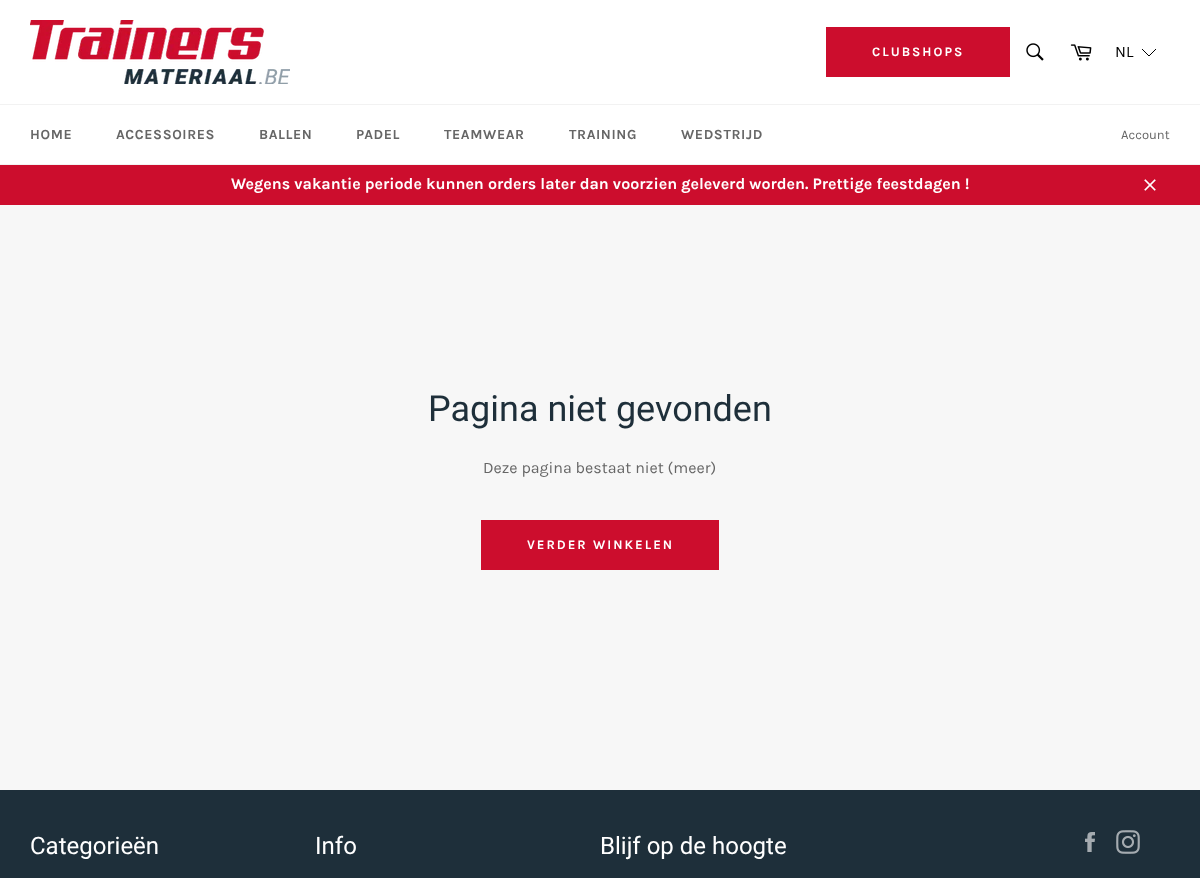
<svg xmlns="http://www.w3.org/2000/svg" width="1200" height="878">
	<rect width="100%" height="100%" fill="#F7F7F7" />
	<rect x="0" y="0" width="1200" height="104" fill="#FFFFFF" />
	<image x="30" y="20" width="260" height="64" href="assets/img1.png" />
	<rect x="826" y="27" width="184" height="50" fill="#CC0D2D" />
	<text x="872" y="56" font-family="Karla" font-size="13" font-weight="700" letter-spacing="2" fill="#FFFFFF">CLUBSHOPS</text>
	<image x="1026" y="43" width="18" height="18" href="assets/img2.png" />
	<image x="1070" y="44" width="22" height="17" href="assets/img3.png" />
	<text x="1115" y="57" font-family="Karla" font-size="16" fill="#000000">NL</text>
	<path d="M1142 49L1149 56L1156 49" fill="none" stroke="#000000" />
	<rect x="0" y="105" width="1200" height="59" fill="#FFFFFF" />
	<rect x="0" y="104" width="1200" height="1" fill="#F2F2F2" />
	<rect x="0" y="164" width="1200" height="1" fill="#F2F2F2" />
	<g font-family="Karla" font-size="14" font-weight="700" letter-spacing="0.6" fill="#666666">
		<text x="30" y="139">HOME</text>
		<text x="116" y="139">ACCESSOIRES</text>
		<text x="259" y="139">BALLEN</text>
		<text x="356" y="139">PADEL</text>
		<text x="444" y="139">TEAMWEAR</text>
		<text x="569" y="139">TRAINING</text>
		<text x="681" y="139">WEDSTRIJD</text>
	</g>
	<text x="1121" y="139" font-family="Karla" font-size="13" fill="#666666">Account</text>
	<rect x="0" y="165" width="1200" height="40" fill="#CC0D2D" />
	<text x="231" y="189" font-family="Karla" font-size="16" font-weight="700" fill="#FFFFFF">Wegens vakantie periode kunnen orders later dan voorzien geleverd worden. Prettige feestdagen !</text>
	<image x="1144" y="179" width="12" height="12" href="assets/img4.png" />
	<text x="428" y="421" font-family="Roboto" font-size="36" fill="#1E2F3A">Pagina niet gevonden</text>
	<text x="483" y="473" font-family="Karla" font-size="16" fill="#666666">Deze pagina bestaat niet (meer)</text>
	<rect x="481" y="520" width="238" height="50" fill="#CC0D2D" />
	<text x="527" y="549" font-family="Karla" font-size="13" font-weight="700" letter-spacing="2" fill="#FFFFFF">VERDER WINKELEN</text>
	<rect x="0" y="790" width="1200" height="88" fill="#1E2F3A" />
	<g font-family="Roboto" font-size="24" fill="#FFFFFF">
		<text x="30" y="854">Categorieën</text>
		<text x="315" y="854">Info</text>
		<text x="600" y="854">Blijf op de hoogte</text>
	</g>
	<image x="1085" y="832" width="10" height="20" href="assets/img5.png" />
	<image x="1116" y="830" width="24" height="24" href="assets/img6.png" />
</svg>
